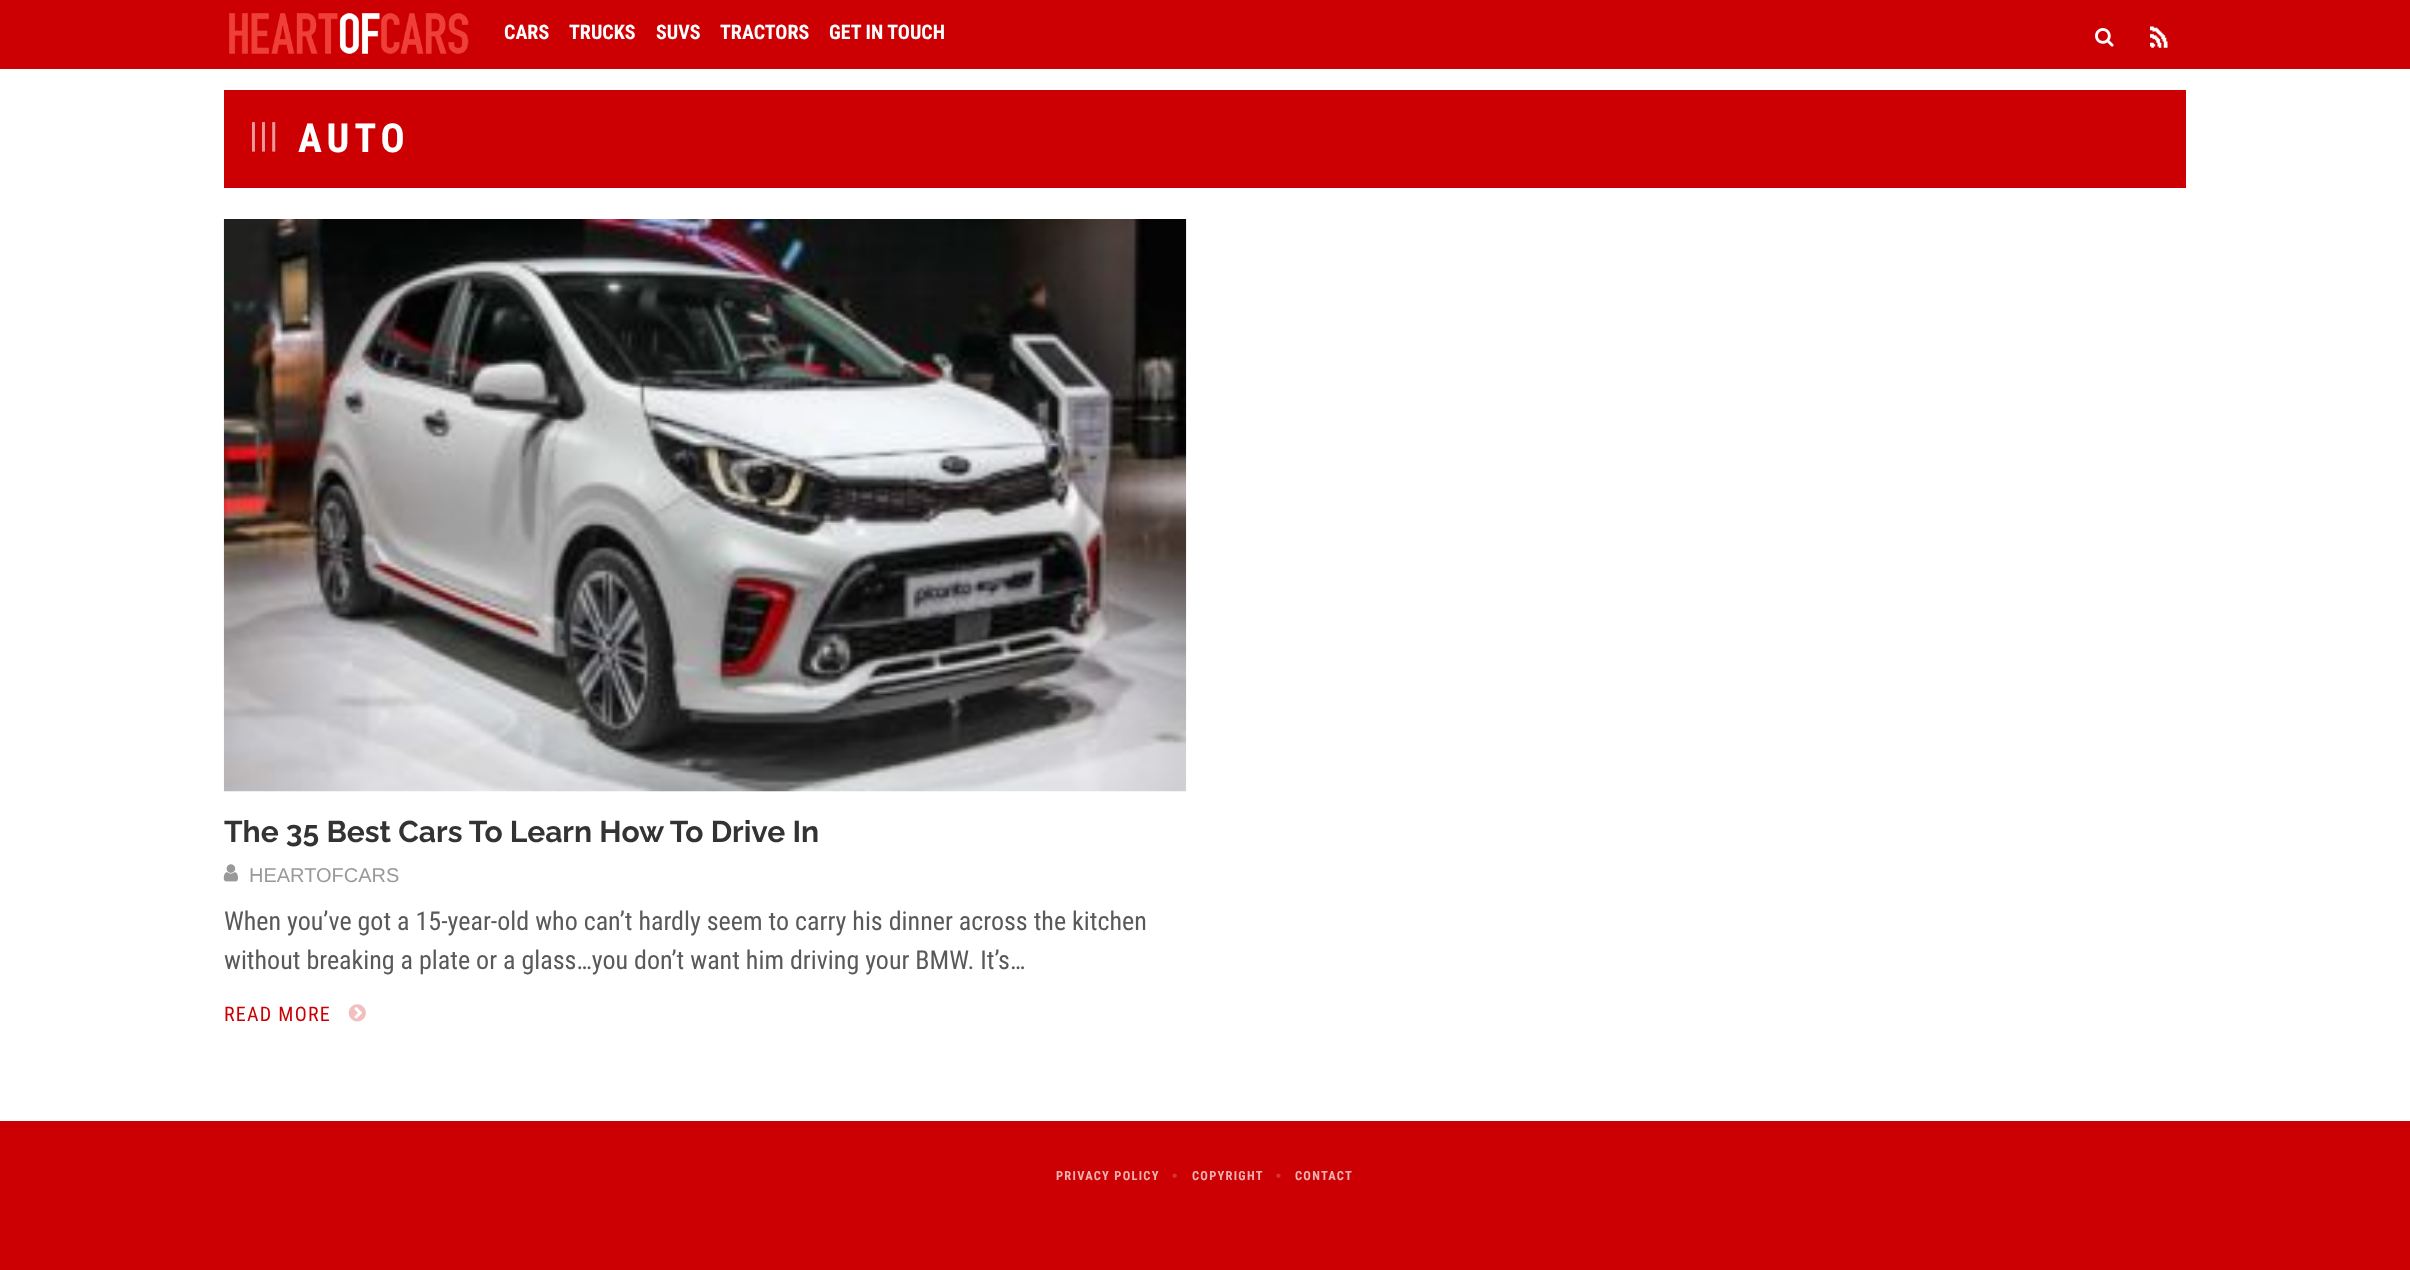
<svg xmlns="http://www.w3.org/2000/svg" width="2410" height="1270">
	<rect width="100%" height="100%" fill="#FFFFFF" />
	<rect x="0" y="0" width="2410" height="69" fill="#CC0003" />
	<image x="229" y="13" width="240" height="41" href="assets/img1.png" />
	<g font-family="Roboto Condensed" font-size="20" font-weight="700" fill="#FFFFFF">
		<text x="504" y="39">CARS</text>
		<text x="569" y="39">TRUCKS</text>
		<text x="656" y="39">SUVS</text>
		<text x="720" y="39">TRACTORS</text>
		<text x="829" y="39">GET IN TOUCH</text>
	</g>
	<image x="2095" y="28" width="19" height="19" href="assets/img2.png" />
	<image x="2150" y="26" width="18" height="22" href="assets/img3.png" />
	<rect x="224" y="90" width="1962" height="98" fill="#CC0003" />
	<text x="249" y="147" font-family="Roboto Condensed" font-size="35" font-weight="700" letter-spacing="1.25" fill="#EB999A">|||</text>
	<text x="298" y="152" font-family="Roboto Condensed" font-size="40" font-weight="700" letter-spacing="5" fill="#FFFFFF">AUTO</text>
	<image x="223" y="219" width="964" height="573" href="assets/img4.png" />
	<text x="224" y="842" font-family="Raleway" font-size="30" font-weight="700" fill="#333333">The 35 Best Cars To Learn How To Drive In</text>
	<image x="223" y="864" width="15" height="18" href="assets/img5.png" />
	<text x="249" y="882" font-family="Liberation Sans" font-size="20" fill="#999999">HEARTOFCARS</text>
	<g font-family="Roboto Condensed" font-size="26" fill="#595959">
		<text x="224" y="930">When you’ve got a 15-year-old who can’t hardly seem to carry his dinner across the kitchen</text>
		<text x="224" y="969">without breaking a plate or a glass…you don’t want him driving your BMW. It’s…</text>
	</g>
	<text x="224" y="1021" font-family="Roboto Condensed" font-size="20" letter-spacing="1.25" fill="#CC0003">READ MORE</text>
	<image x="348" y="1004" width="18" height="18" href="assets/img6.png" />
	<rect x="0" y="1121" width="2410" height="149" fill="#CC0003" />
	<text x="1056" y="1180" font-family="Roboto Condensed" font-size="12.5" font-weight="700" letter-spacing="1.25" fill="#F0B3B3">PRIVACY POLICY</text>
	<image x="1172" y="1173" width="5" height="5" href="assets/img7.png" />
	<text x="1192" y="1180" font-family="Roboto Condensed" font-size="12.5" font-weight="700" letter-spacing="1.25" fill="#F0B3B3">COPYRIGHT</text>
	<image x="1276" y="1173" width="5" height="5" href="assets/img8.png" />
	<text x="1295" y="1180" font-family="Roboto Condensed" font-size="12.5" font-weight="700" letter-spacing="1.25" fill="#F0B3B3">CONTACT</text>
</svg>
